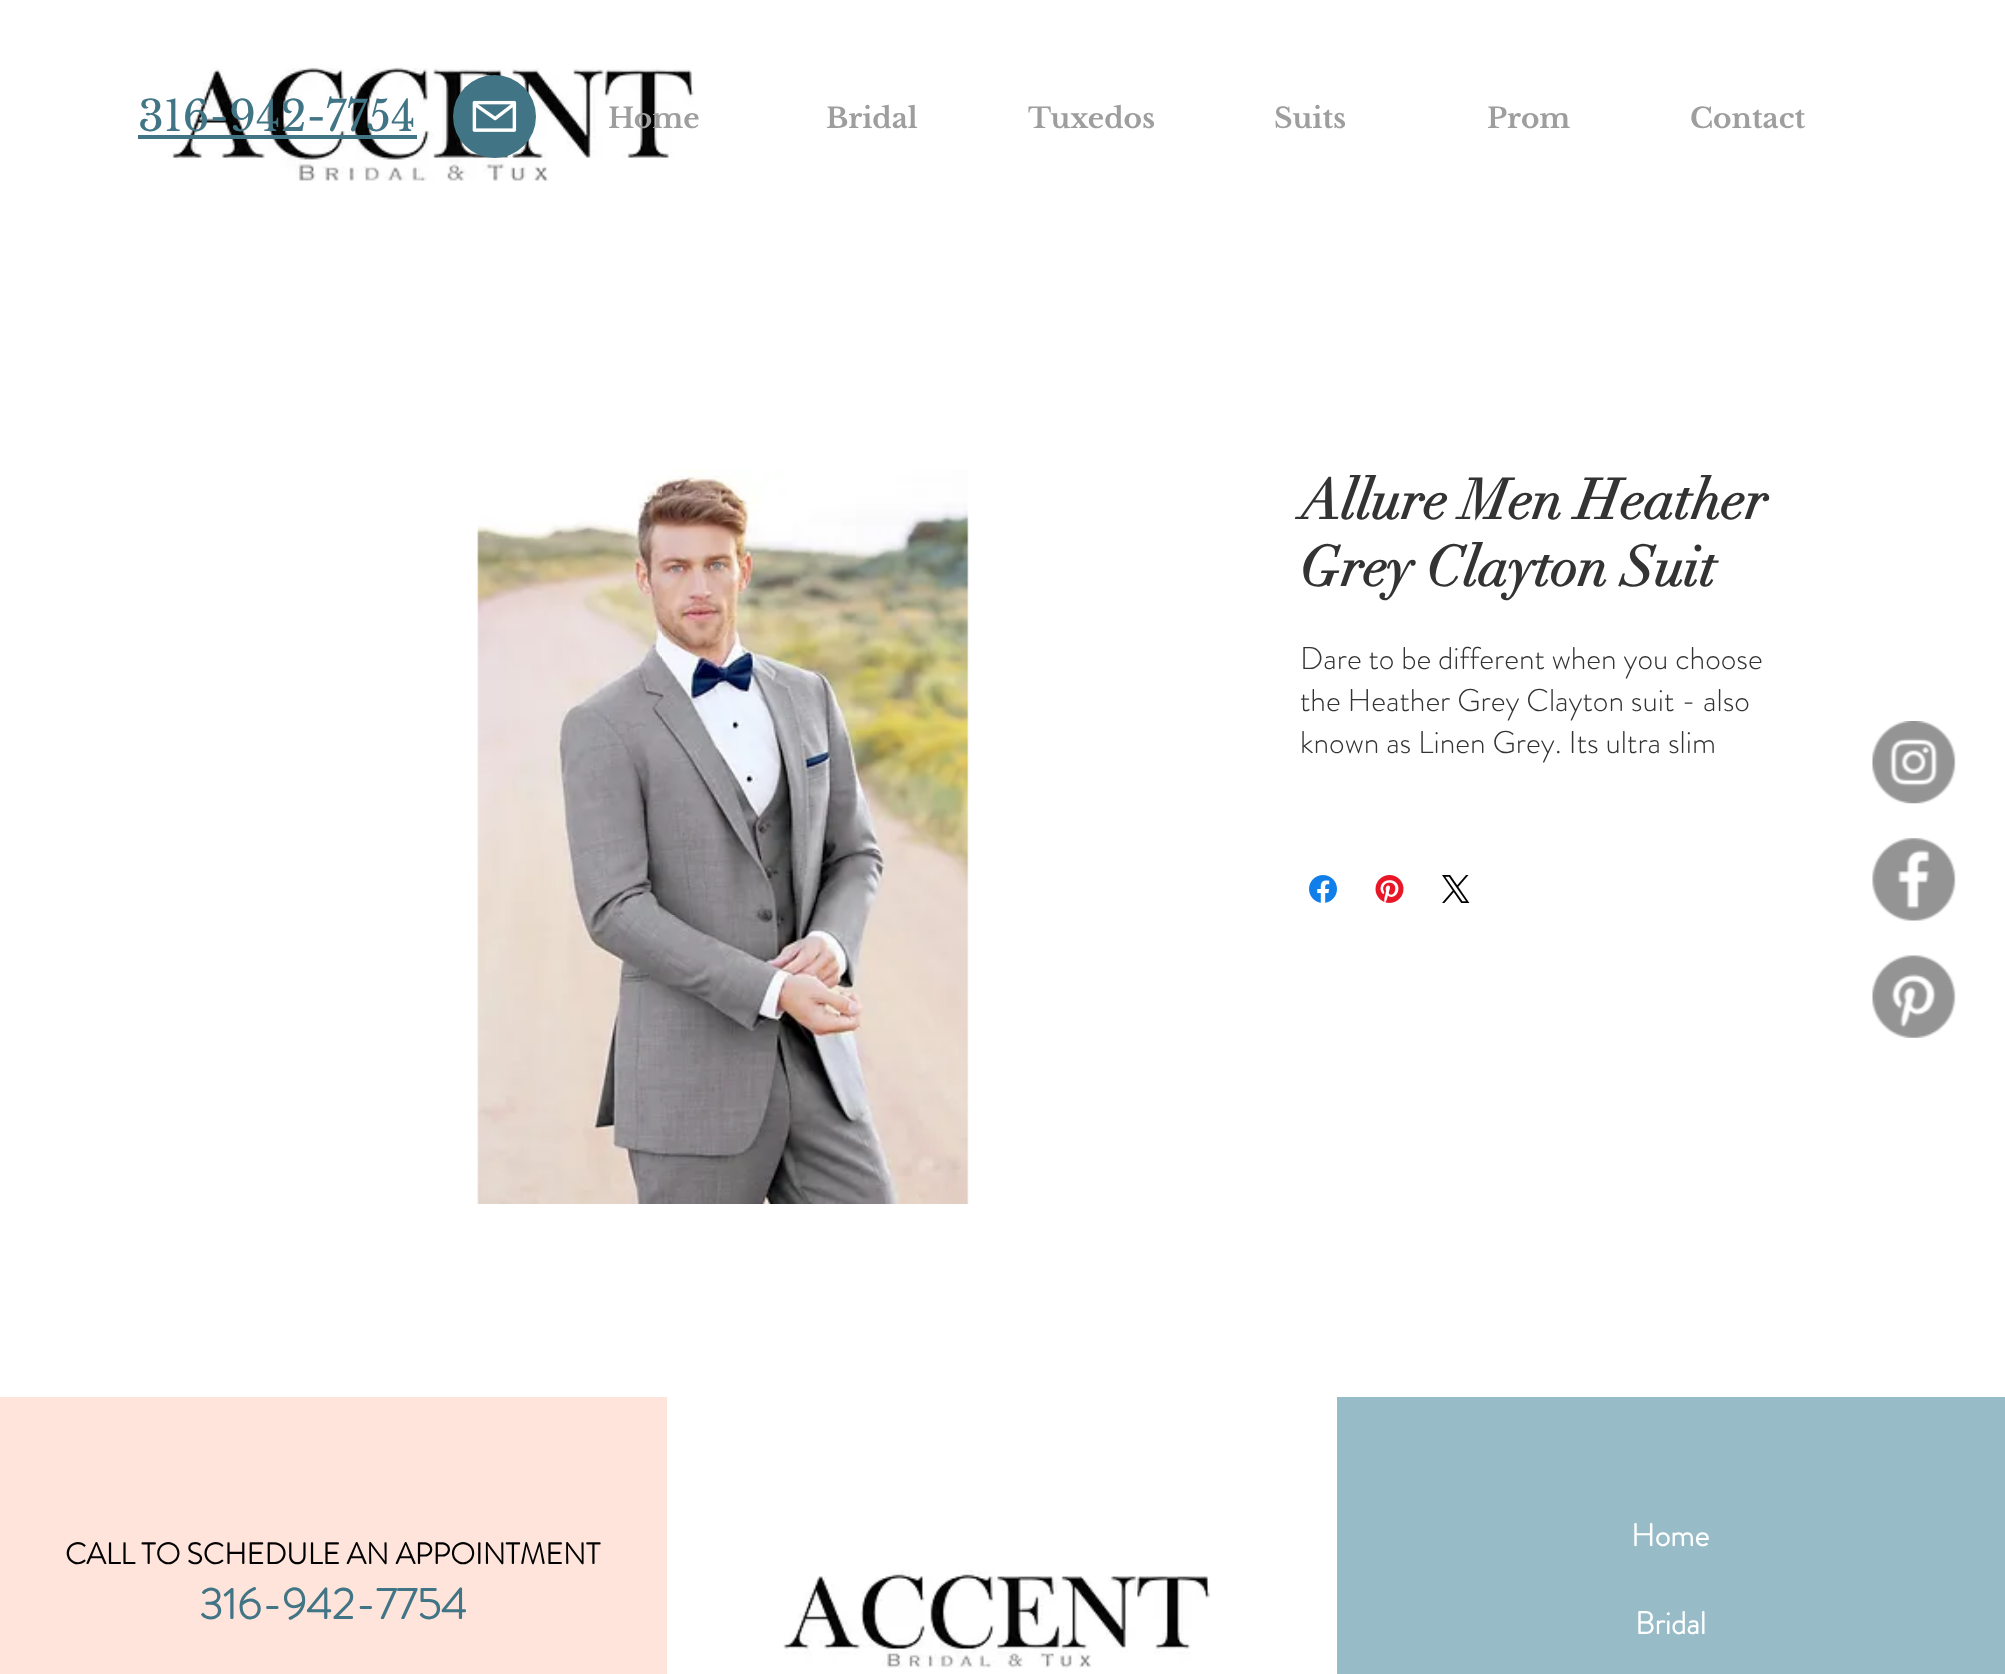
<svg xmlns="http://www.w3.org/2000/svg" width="2005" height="1674">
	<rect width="100%" height="100%" fill="#FFFFFF" />
	<image x="168" y="67" width="526" height="114" href="assets/img1.png" />
	<text x="138" y="131" font-family="Libre Baskerville" font-size="42" fill="#417586">316-942-7754</text>
	<rect x="138" y="135" width="279" height="4" fill="#417586" />
	<circle cx="494.5" cy="116.5" r="41.5" fill="#417586" />
	<image x="472" y="100" width="45" height="32" href="assets/img2.png" />
	<g font-family="Libre Baskerville" font-size="28" font-weight="700" fill="#9E9E9E">
		<text x="608" y="128">Home</text>
		<text x="826" y="128">Bridal</text>
		<text x="1028" y="128">Tuxedos</text>
		<text x="1274" y="128">Suits</text>
		<text x="1487" y="128">Prom</text>
		<text x="1690" y="128">Contact</text>
	</g>
	<image x="477" y="469" width="492" height="735" href="assets/img3.png" />
	<g font-family="didot" font-size="56" font-weight="700" fill="#333333">
		<text x="1300" y="519">Allure Men Heather</text>
		<text x="1300" y="586">Grey Clayton Suit</text>
	</g>
	<g font-family="'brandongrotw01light'" font-size="31.5" font-weight="300" fill="#333333">
		<text x="1300" y="669">Dare to be different when you choose</text>
		<text x="1300" y="711">the Heather Grey Clayton suit - also</text>
		<text x="1300" y="753">known as Linen Grey. Its ultra slim</text>
	</g>
	<image x="1309" y="875" width="28" height="28" href="assets/img4.png" />
	<image x="1375" y="875" width="29" height="28" href="assets/img5.png" />
	<image x="1442" y="875" width="28" height="28" href="assets/img6.png" />
	<image x="1872" y="721" width="84" height="83" href="assets/img7.png" />
	<image x="1872" y="838" width="84" height="83" href="assets/img8.png" />
	<image x="1872" y="955" width="84" height="83" href="assets/img9.png" />
	<rect x="0" y="1397" width="667" height="277" fill="#FFE4DB" />
	<text x="65" y="1564" font-family="'brandongrotw01light'" font-size="29.75" font-weight="700" fill="#000000">CALL TO SCHEDULE AN APPOINTMENT</text>
	<text x="199" y="1619" font-family="'brandongrotw01light'" font-size="43.75" font-weight="700" fill="#417586">316-942-7754</text>
	<image x="783" y="1570" width="428" height="98" href="assets/img10.png" />
	<rect x="1337" y="1397" width="668" height="277" fill="#97BCC8" />
	<g font-family="'brandongrotw01light'" font-size="31.5" font-weight="700" fill="#FFFFFF">
		<text x="1631" y="1546">Home</text>
		<text x="1635" y="1634">Bridal</text>
	</g>
</svg>
